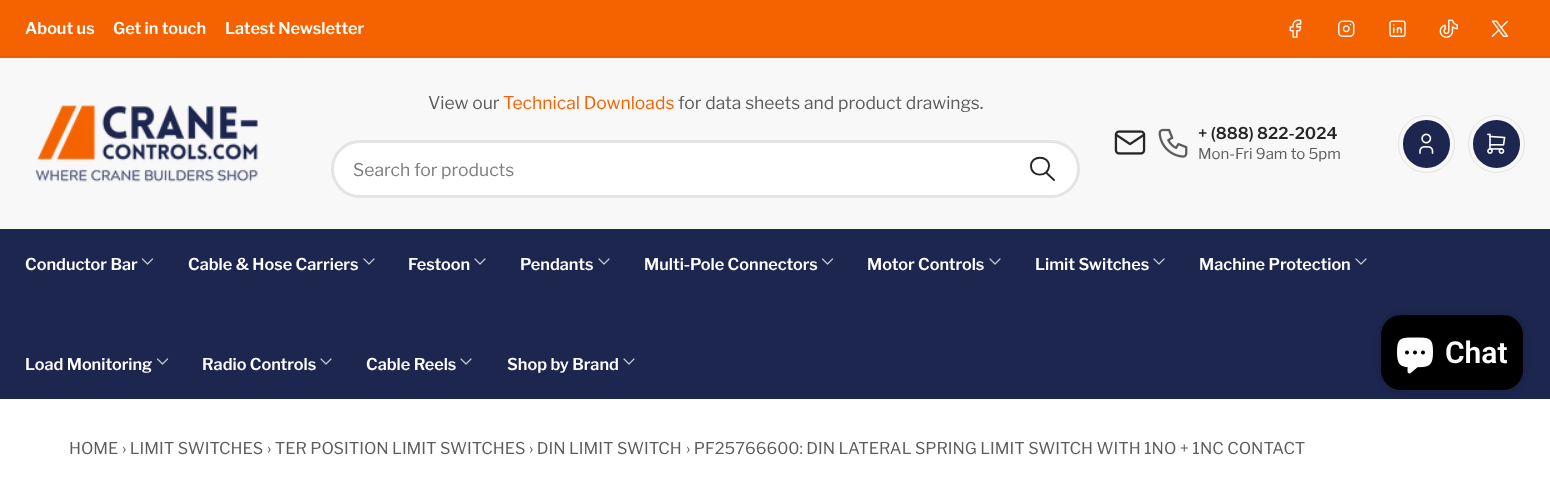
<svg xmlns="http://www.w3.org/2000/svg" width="1550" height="496">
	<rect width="100%" height="100%" fill="#FFFFFF" />
	<rect x="0" y="0" width="1550" height="58" fill="#F56300" />
	<rect x="0" y="56" width="1550" height="1" fill="#E05D04" />
	<g font-family="Libre Franklin" font-size="16.25" font-weight="600" fill="#FFFFFF">
		<text x="25" y="34">About us</text>
		<text x="113" y="34">Get in touch</text>
		<text x="225" y="34">Latest Newsletter</text>
	</g>
	<image x="1289" y="19" width="13" height="19" href="assets/img1.png" />
	<image x="1338" y="20" width="17" height="17" href="assets/img2.png" />
	<image x="1389" y="20" width="17" height="17" href="assets/img3.png" />
	<image x="1439" y="19" width="19" height="19" href="assets/img4.png" />
	<image x="1491" y="20" width="18" height="17" href="assets/img5.png" />
	<rect x="0" y="58" width="1550" height="171" fill="#F8F8F8" />
	<image x="35" y="105" width="223" height="77" href="assets/img6.png" />
	<text x="428" y="109" font-family="Libre Franklin" font-size="17.5" fill="#5C5C5C">View our</text>
	<text x="503" y="109" font-family="Libre Franklin" font-size="17.5" fill="#F56300">Technical Downloads</text>
	<text x="678" y="109" font-family="Libre Franklin" font-size="17.5" fill="#5C5C5C">for data sheets and product drawings.</text>
	<rect x="332.5" y="141.5" width="746" height="55" rx="27.5" fill="#FFFFFF" stroke="#E4E4E4" stroke-width="3" />
	<text x="353" y="176" font-family="Libre Franklin" font-size="17.5" fill="#7D7D7D">Search for products</text>
	<path d="M1031 166C1031 177.5 1048.5 177.5 1049 166C1049 155 1031 155 1031 166M1054 180L1046 172.5" fill="none" stroke="#262626" stroke-width="1.9" stroke-linecap="round" stroke-linejoin="round" />
	<image x="1114" y="130" width="32" height="25" href="assets/img7.png" />
	<image x="1158" y="128" width="30" height="30" href="assets/img8.png" />
	<text x="1198" y="139" font-family="Libre Franklin" font-size="16.25" font-weight="600" fill="#262626">+ (888) 822-2024</text>
	<text x="1198" y="159" font-family="Libre Franklin" font-size="15" fill="#5C5C5C">Mon-Fri 9am to 5pm</text>
	<rect x="1398.5" y="115.5" width="56" height="57" rx="28" fill="none" stroke="#E4E4E4" />
	<rect x="1403" y="120" width="47" height="48" rx="23.5" fill="#1C264E" />
	<image x="1419" y="133" width="15" height="21" href="assets/img9.png" />
	<rect x="1468.5" y="115.5" width="56" height="57" rx="28" fill="none" stroke="#E4E4E4" />
	<rect x="1473" y="120" width="47" height="48" rx="23.5" fill="#1C264E" />
	<image x="1487" y="133" width="19" height="21" href="assets/img10.png" />
	<rect x="0" y="229" width="1550" height="170" fill="#1C264E" />
	<text x="25" y="270" font-family="Libre Franklin" font-size="16.25" font-weight="600" fill="#FFFFFF">Conductor Bar</text>
	<path d="M142.5 259L147.5 264L152.5 259" fill="none" stroke="#C6C9D3" stroke-width="1.2" stroke-linecap="round" stroke-linejoin="round" />
	<text x="188" y="270" font-family="Libre Franklin" font-size="16.25" font-weight="600" fill="#FFFFFF">Cable &amp; Hose Carriers</text>
	<path d="M364 259L369 264L374 259" fill="none" stroke="#C6C9D3" stroke-width="1.2" stroke-linecap="round" stroke-linejoin="round" />
	<text x="408" y="270" font-family="Libre Franklin" font-size="16.25" font-weight="600" fill="#FFFFFF">Festoon</text>
	<path d="M475 259L480 264L485 259" fill="none" stroke="#C6C9D3" stroke-width="1.2" stroke-linecap="round" stroke-linejoin="round" />
	<text x="520" y="270" font-family="Libre Franklin" font-size="16.25" font-weight="600" fill="#FFFFFF">Pendants</text>
	<path d="M599 259L604 264L609 259" fill="none" stroke="#C6C9D3" stroke-width="1.2" stroke-linecap="round" stroke-linejoin="round" />
	<text x="644" y="270" font-family="Libre Franklin" font-size="16.25" font-weight="600" fill="#FFFFFF">Multi-Pole Connectors</text>
	<path d="M822.5 259L827.5 264L832.5 259" fill="none" stroke="#C6C9D3" stroke-width="1.2" stroke-linecap="round" stroke-linejoin="round" />
	<text x="867" y="270" font-family="Libre Franklin" font-size="16.25" font-weight="600" fill="#FFFFFF">Motor Controls</text>
	<path d="M990 259L995 264L1000 259" fill="none" stroke="#C6C9D3" stroke-width="1.2" stroke-linecap="round" stroke-linejoin="round" />
	<text x="1035" y="270" font-family="Libre Franklin" font-size="16.25" font-weight="600" fill="#FFFFFF">Limit Switches</text>
	<path d="M1154 259L1159 264L1164 259" fill="none" stroke="#C6C9D3" stroke-width="1.2" stroke-linecap="round" stroke-linejoin="round" />
	<text x="1199" y="270" font-family="Libre Franklin" font-size="16.25" font-weight="600" fill="#FFFFFF">Machine Protection</text>
	<path d="M1356 259L1361 264L1366 259" fill="none" stroke="#C6C9D3" stroke-width="1.2" stroke-linecap="round" stroke-linejoin="round" />
	<text x="25" y="370" font-family="Libre Franklin" font-size="16.25" font-weight="600" fill="#FFFFFF">Load Monitoring</text>
	<path d="M157.5 359L162.5 364L167.5 359" fill="none" stroke="#C6C9D3" stroke-width="1.2" stroke-linecap="round" stroke-linejoin="round" />
	<text x="202" y="370" font-family="Libre Franklin" font-size="16.25" font-weight="600" fill="#FFFFFF">Radio Controls</text>
	<path d="M321 359L326 364L331 359" fill="none" stroke="#C6C9D3" stroke-width="1.2" stroke-linecap="round" stroke-linejoin="round" />
	<text x="366" y="370" font-family="Libre Franklin" font-size="16.25" font-weight="600" fill="#FFFFFF">Cable Reels</text>
	<path d="M461 359L466 364L471 359" fill="none" stroke="#C6C9D3" stroke-width="1.2" stroke-linecap="round" stroke-linejoin="round" />
	<text x="507" y="370" font-family="Libre Franklin" font-size="16.25" font-weight="600" fill="#FFFFFF">Shop by Brand</text>
	<path d="M624 359L629 364L634 359" fill="none" stroke="#C6C9D3" stroke-width="1.2" stroke-linecap="round" stroke-linejoin="round" />
	<rect x="1381" y="315" width="142" height="75" rx="20" fill="#000000" fill-opacity="0.15" filter="blur(3px)" />
	<rect x="1381" y="315" width="142" height="75" rx="20" fill="#000000" />
	<image x="1397" y="337" width="36" height="37" href="assets/img11.png" />
	<text x="1445" y="363" font-family="Roboto" font-size="30" font-weight="600" fill="#FFFFFF">Chat</text>
	<g font-family="Libre Franklin" font-size="16.25" fill="#5C5C5C">
		<text x="69" y="454">HOME</text>
		<text x="122" y="454">› LIMIT SWITCHES</text>
		<text x="267" y="454">› TER POSITION LIMIT SWITCHES</text>
		<text x="529" y="454">› DIN LIMIT SWITCH</text>
		<text x="686" y="454">› PF25766600: DIN LATERAL SPRING LIMIT SWITCH WITH 1NO + 1NC CONTACT</text>
	</g>
</svg>
